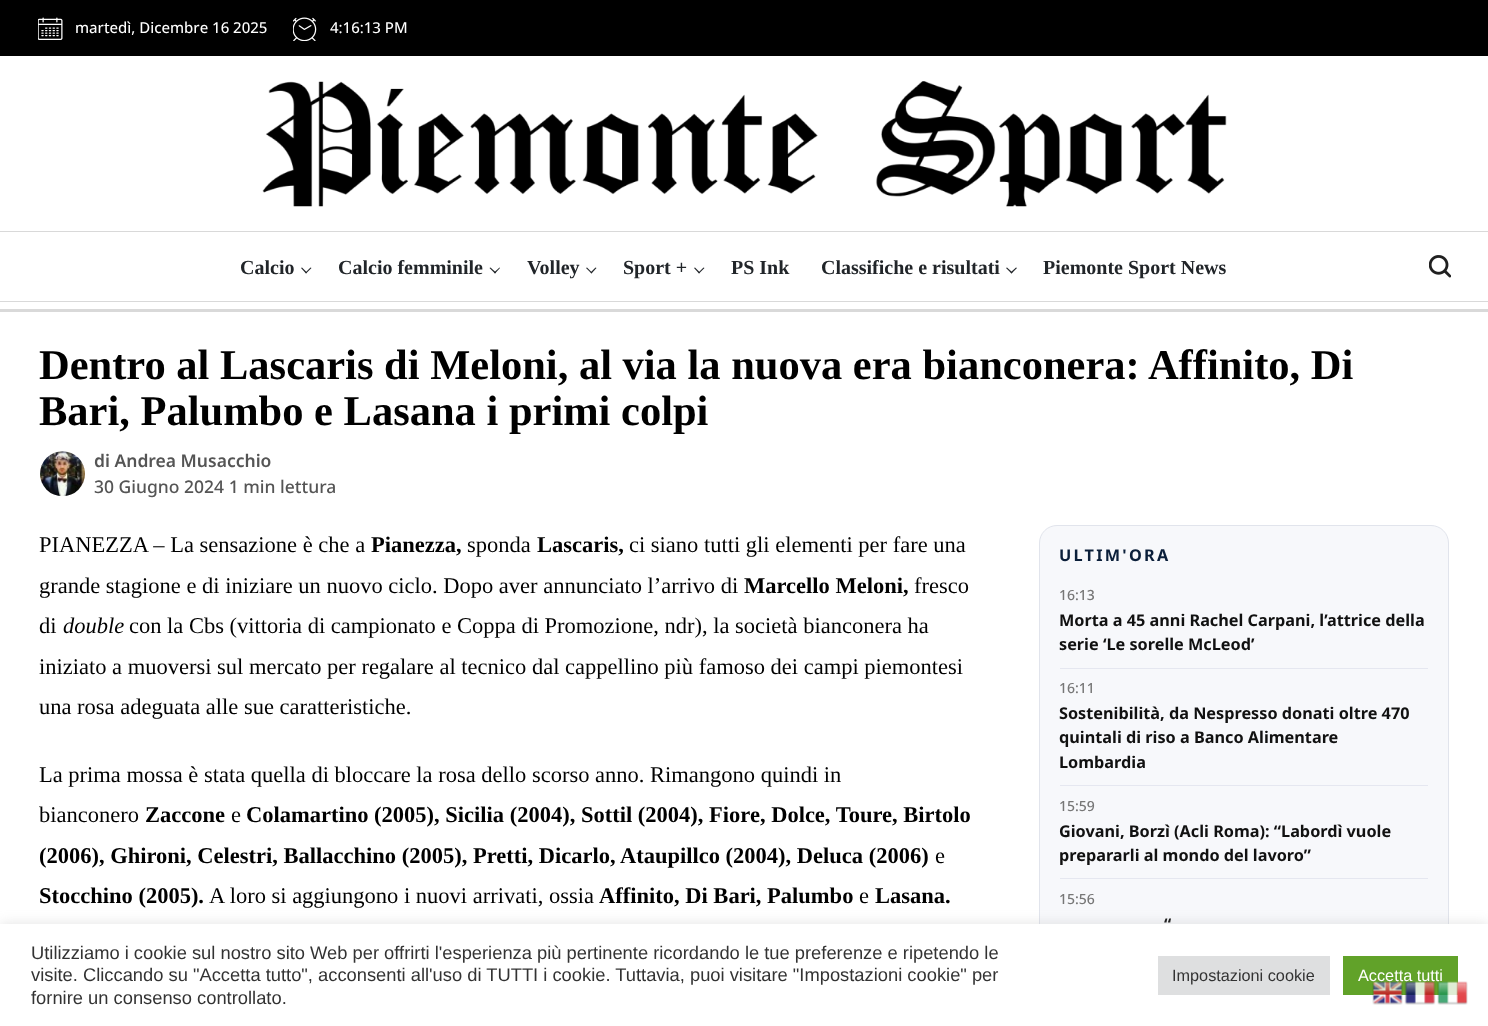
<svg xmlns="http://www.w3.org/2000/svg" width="1488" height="1026">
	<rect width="100%" height="100%" fill="#FFFFFF" />
	<rect x="0" y="0" width="1488" height="56" fill="#000000" />
	<image x="38" y="17" width="25" height="23" href="assets/img1.png" />
	<text x="75" y="33" font-family="Open Sans" font-size="15" font-weight="500" fill="#FFFFFF">martedì, Dicembre 16 2025</text>
	<image x="293" y="17" width="24" height="24" href="assets/img2.png" />
	<text x="330" y="33" font-family="Open Sans" font-size="15" font-weight="500" fill="#FFFFFF">4:16:13 PM</text>
	<image x="262" y="81" width="965" height="126" href="assets/img3.png" />
	<rect x="0" y="231" width="1488" height="1" fill="#D9D9D9" />
	<text x="240" y="274" font-family="Liberation Serif" font-size="20" font-weight="700" fill="#212529">Calcio</text>
	<path d="M301 268L302 267.5L307 272.5L306 273.5Z" fill="#212529" />
	<path d="M305.5 272.5L310.5 267.5L311.5 268L306 273.5Z" fill="#212529" />
	<text x="338" y="274" font-family="Liberation Serif" font-size="20" font-weight="700" fill="#212529">Calcio femminile</text>
	<path d="M489.5 268L490.5 267.5L496 272.5L495 273.5Z" fill="#212529" />
	<path d="M494 272.5L499.5 267.5L500 268L495 273.5Z" fill="#212529" />
	<text x="527" y="274" font-family="Liberation Serif" font-size="20" font-weight="700" fill="#212529">Volley</text>
	<path d="M586 268L587 267.5L592 272.5L591.5 273.5Z" fill="#212529" />
	<path d="M590.5 272.5L595.5 267.5L596.5 268L591.5 273.5Z" fill="#212529" />
	<text x="623" y="274" font-family="Liberation Serif" font-size="20" font-weight="700" fill="#212529">Sport +</text>
	<path d="M694 268L695 267.5L700 272.5L699 273.5Z" fill="#212529" />
	<path d="M698.5 272.5L703.5 267.5L704.5 268L699 273.5Z" fill="#212529" />
	<g font-family="Liberation Serif" font-size="20" font-weight="700" fill="#212529">
		<text x="731" y="274">PS Ink</text>
		<text x="821" y="274">Classifiche e risultati</text>
	</g>
	<path d="M1006 268L1007 267.5L1012.5 272.5L1011.5 273.5Z" fill="#212529" />
	<path d="M1010.5 272.5L1016 267.5L1017 268L1011.5 273.5Z" fill="#212529" />
	<text x="1043" y="274" font-family="Liberation Serif" font-size="20" font-weight="700" fill="#212529">Piemonte Sport News</text>
	<image x="1429" y="255" width="22" height="23" href="assets/img4.png" />
	<rect x="0" y="301" width="1488" height="1" fill="#D9D9D9" />
	<rect x="0" y="309" width="1488" height="3" fill="#D9D9D9" />
	<g font-family="Liberation Serif" font-size="42.5" font-weight="700" fill="#000000">
		<text x="39" y="379">Dentro al Lascaris di Meloni, al via la nuova era bianconera: Affinito, Di</text>
		<text x="39" y="425">Bari, Palumbo e Lasana i primi colpi</text>
	</g>
	<image x="40" y="451" width="45" height="45" href="assets/img5.png" />
	<text x="94" y="467" font-family="Noto Sans" font-size="17.5" font-weight="600" fill="#555555">di Andrea Musacchio</text>
	<text x="94" y="493" font-family="Noto Sans" font-size="17.5" font-weight="500" fill="#555555">30 Giugno 2024 1 min lettura</text>
	<text x="39" y="552" font-family="Liberation Serif" font-size="22.5" fill="#000000">PIANEZZA – La sensazione è che a</text>
	<text x="371" y="552" font-family="Liberation Serif" font-size="22.5" font-weight="700" fill="#000000">Pianezza,</text>
	<text x="467" y="552" font-family="Liberation Serif" font-size="22.5" fill="#000000">sponda</text>
	<text x="537" y="552" font-family="Liberation Serif" font-size="22.5" font-weight="700" fill="#000000">Lascaris,</text>
	<g font-family="Liberation Serif" font-size="22.5" fill="#000000">
		<text x="629" y="552">ci siano tutti gli elementi per fare una</text>
		<text x="39" y="593">grande stagione e di iniziare un nuovo ciclo. Dopo aver annunciato l’arrivo di</text>
	</g>
	<text x="744" y="593" font-family="Liberation Serif" font-size="22.5" font-weight="700" fill="#000000">Marcello Meloni,</text>
	<g font-family="Liberation Serif" font-size="22.5" fill="#000000">
		<text x="914" y="593">fresco</text>
		<text x="39" y="633">di</text>
	</g>
	<text x="63" y="633" font-family="Liberation Serif" font-size="22.5" font-style="italic" fill="#000000">double</text>
	<g font-family="Liberation Serif" font-size="22.5" fill="#000000">
		<text x="129" y="633">con la Cbs (vittoria di campionato e Coppa di Promozione, ndr), la società bianconera ha</text>
		<text x="39" y="674">iniziato a muoversi sul mercato per regalare al tecnico dal cappellino più famoso dei campi piemontesi</text>
		<text x="39" y="714">una rosa adeguata alle sue caratteristiche.</text>
		<text x="39" y="782">La prima mossa è stata quella di bloccare la rosa dello scorso anno. Rimangono quindi in</text>
		<text x="39" y="822">bianconero</text>
	</g>
	<text x="145" y="822" font-family="Liberation Serif" font-size="22.5" font-weight="700" fill="#000000">Zaccone</text>
	<text x="231" y="822" font-family="Liberation Serif" font-size="22.5" fill="#000000">e</text>
	<g font-family="Liberation Serif" font-size="22.5" font-weight="700" fill="#000000">
		<text x="246" y="822">Colamartino (2005), Sicilia (2004), Sottil (2004), Fiore, Dolce, Toure, Birtolo</text>
		<text x="39" y="863">(2006), Ghironi, Celestri, Ballacchino (2005), Pretti, Dicarlo, Ataupillco (2004), Deluca (2006)</text>
	</g>
	<text x="935" y="863" font-family="Liberation Serif" font-size="22.5" fill="#000000">e</text>
	<text x="39" y="903" font-family="Liberation Serif" font-size="22.5" font-weight="700" fill="#000000">Stocchino (2005).</text>
	<text x="209" y="903" font-family="Liberation Serif" font-size="22.5" fill="#000000">A loro si aggiungono i nuovi arrivati, ossia</text>
	<text x="599" y="903" font-family="Liberation Serif" font-size="22.5" font-weight="700" fill="#000000">Affinito, Di Bari, Palumbo</text>
	<text x="859" y="903" font-family="Liberation Serif" font-size="22.5" fill="#000000">e</text>
	<text x="875" y="903" font-family="Liberation Serif" font-size="22.5" font-weight="700" fill="#000000">Lasana.</text>
	<rect x="1039.5" y="525.5" width="409" height="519" rx="17.5" fill="#F7F8FB" stroke="#E1E4EC" />
	<text x="1059" y="561" font-family="Noto Sans" font-size="16.25" font-weight="700" letter-spacing="2.25" fill="#0B1F3A">ULTIM'ORA</text>
	<rect x="1060" y="668" width="368" height="1" fill="#E5E7F0" />
	<text x="1059" y="600" font-family="Noto Sans" font-size="14" font-weight="500" fill="#777777">16:13</text>
	<g font-family="Noto Sans" font-size="16.25" font-weight="700" fill="#111111">
		<text x="1059" y="626">Morta a 45 anni Rachel Carpani, l’attrice della</text>
		<text x="1059" y="650">serie ‘Le sorelle McLeod’</text>
	</g>
	<rect x="1060" y="785" width="368" height="1" fill="#E5E7F0" />
	<text x="1059" y="693" font-family="Noto Sans" font-size="14" font-weight="500" fill="#777777">16:11</text>
	<g font-family="Noto Sans" font-size="16.25" font-weight="700" fill="#111111">
		<text x="1059" y="719">Sostenibilità, da Nespresso donati oltre 470</text>
		<text x="1059" y="743">quintali di riso a Banco Alimentare</text>
		<text x="1059" y="768">Lombardia</text>
	</g>
	<rect x="1060" y="878" width="368" height="1" fill="#E5E7F0" />
	<text x="1059" y="811" font-family="Noto Sans" font-size="14" font-weight="500" fill="#777777">15:59</text>
	<g font-family="Noto Sans" font-size="16.25" font-weight="700" fill="#111111">
		<text x="1059" y="837">Giovani, Borzì (Acli Roma): “Labordì vuole</text>
		<text x="1059" y="861">prepararli al mondo del lavoro”</text>
	</g>
	<text x="1059" y="904" font-family="Noto Sans" font-size="14" font-weight="500" fill="#777777">15:56</text>
	<text x="1164" y="930" font-family="Noto Sans" font-size="16.25" font-weight="700" fill="#111111">“</text>
	<rect x="0" y="923" width="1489" height="102" fill="#ACABAB" fill-opacity="0.3" filter="blur(6px)" />
	<rect x="0" y="924" width="1488" height="102" fill="#FFFFFF" />
	<g font-family="Liberation Sans" font-size="18.33" fill="#333333">
		<text x="31" y="959">Utilizziamo i cookie sul nostro sito Web per offrirti l'esperienza più pertinente ricordando le tue preferenze e ripetendo le</text>
		<text x="31" y="981">visite. Cliccando su "Accetta tutto", acconsenti all'uso di TUTTI i cookie. Tuttavia, puoi visitare "Impostazioni cookie" per</text>
		<text x="31" y="1004">fornire un consenso controllato.</text>
	</g>
	<rect x="1158" y="956" width="172" height="39" fill="#DEDFE0" />
	<text x="1172" y="981" font-family="Liberation Sans" font-size="16.25" fill="#333333">Impostazioni cookie</text>
	<rect x="1343" y="956" width="115" height="39" fill="#61A229" />
	<text x="1358" y="981" font-family="Liberation Sans" font-size="16.25" fill="#FFFFFF">Accetta tutti</text>
	<image x="1372" y="981" width="31" height="24" href="assets/img6.png" />
	<image x="1404" y="981" width="32" height="24" href="assets/img7.png" />
	<image x="1437" y="981" width="31" height="24" href="assets/img8.png" />
</svg>
